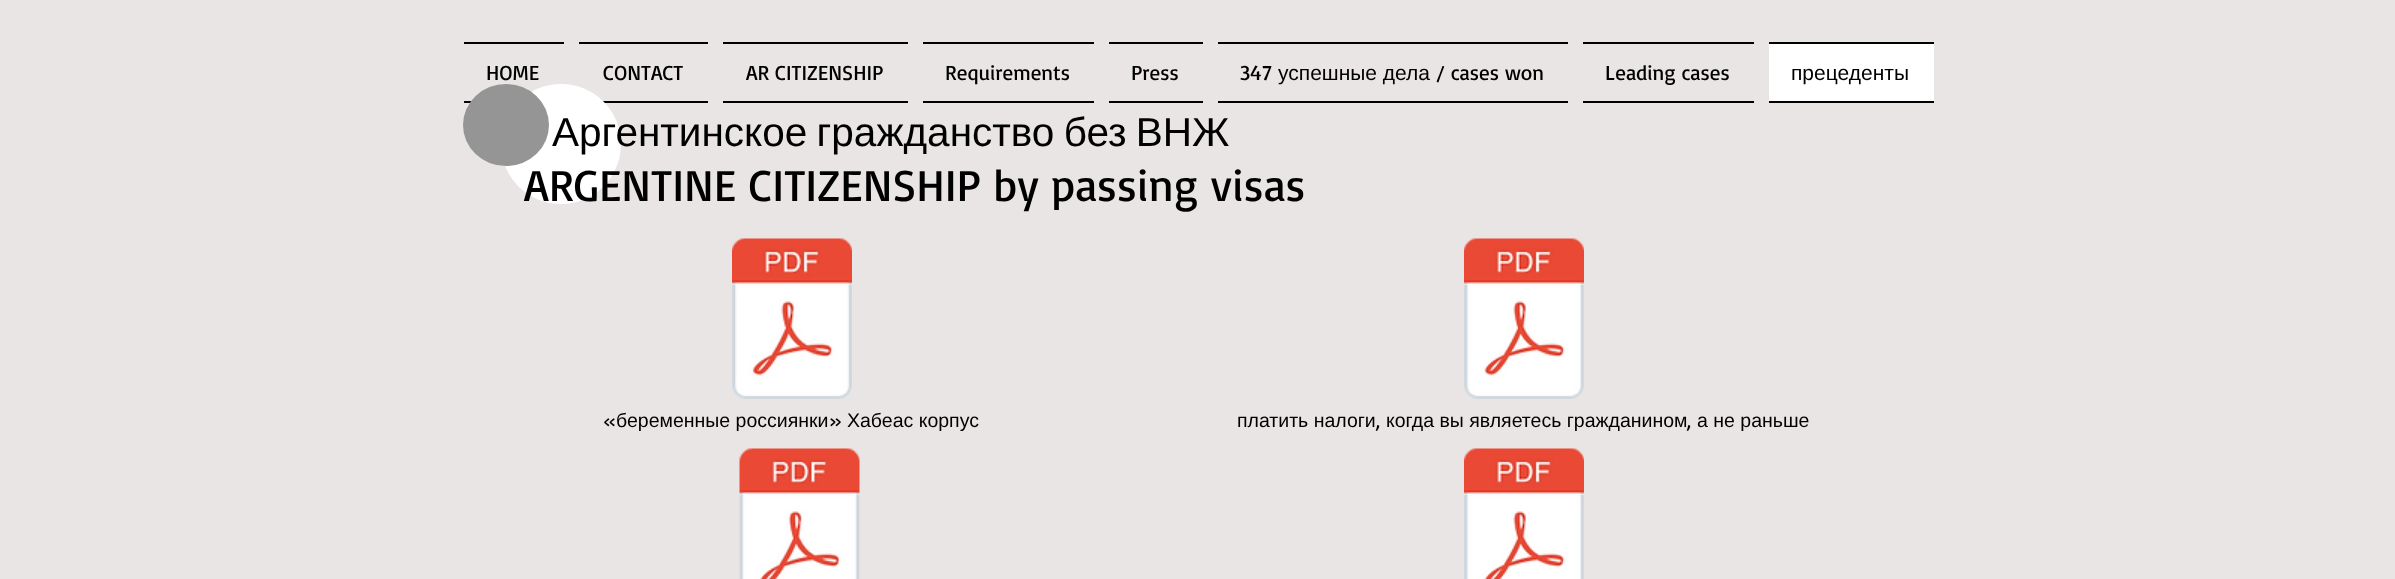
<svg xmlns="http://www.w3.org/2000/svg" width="2395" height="579">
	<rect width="100%" height="100%" fill="#EAE5E5" />
	<rect x="464" y="42" width="100" height="2" fill="#000000" />
	<rect x="464" y="101" width="8" height="2" fill="#000000" />
	<text x="486" y="80" font-family="Basic" font-size="21" fill="#000000">HOME</text>
	<rect x="579" y="42" width="129" height="2" fill="#000000" />
	<rect x="602" y="101" width="106" height="2" fill="#000000" />
	<text x="603" y="80" font-family="Basic" font-size="21" fill="#000000">CONTACT</text>
	<rect x="723" y="42" width="185" height="2" fill="#000000" />
	<rect x="723" y="101" width="185" height="2" fill="#000000" />
	<text x="746" y="80" font-family="Basic" font-size="21" fill="#000000">AR CITIZENSHIP</text>
	<rect x="923" y="42" width="171" height="2" fill="#000000" />
	<rect x="923" y="101" width="171" height="2" fill="#000000" />
	<text x="945" y="80" font-family="Basic" font-size="21" fill="#000000">Requirements</text>
	<rect x="1109" y="42" width="94" height="2" fill="#000000" />
	<rect x="1109" y="101" width="94" height="2" fill="#000000" />
	<text x="1131" y="80" font-family="Basic" font-size="21" fill="#000000">Press</text>
	<rect x="1218" y="42" width="350" height="2" fill="#000000" />
	<rect x="1218" y="101" width="350" height="2" fill="#000000" />
	<text x="1240" y="80" font-family="Basic" font-size="21" fill="#000000">347</text>
	<text x="1278" y="80" font-family="Liberation Sans" font-size="21" fill="#000000">успешные дела</text>
	<text x="1436" y="80" font-family="Basic" font-size="21" fill="#000000">/ cases won</text>
	<rect x="1583" y="42" width="171" height="2" fill="#000000" />
	<rect x="1583" y="101" width="171" height="2" fill="#000000" />
	<text x="1605" y="80" font-family="Basic" font-size="21" fill="#000000">Leading cases</text>
	<rect x="1769" y="44" width="165" height="57" fill="#FFFFFF" />
	<rect x="1769" y="42" width="165" height="2" fill="#000000" />
	<rect x="1769" y="101" width="165" height="2" fill="#000000" />
	<text x="1791" y="80" font-family="Liberation Sans" font-size="21" fill="#000000">прецеденты</text>
	<circle cx="561" cy="144" r="60" fill="#FFFFFF" />
	<ellipse cx="506" cy="125" rx="43" ry="41" fill="#959595" />
	<text x="552" y="146" word-spacing="-2" font-family="Liberation Sans" font-size="40.5" fill="#000000">Аргентинское гражданство без ВНЖ</text>
	<text x="524" y="201" font-family="Basic" font-size="45" fill="#000000">ARGENTINE CITIZENSHIP by passing visas</text>
	<image x="732" y="238" width="120" height="161" href="assets/img1.png" />
	<text x="603" y="427" font-family="Basic" font-size="19.5" fill="#000000">«</text>
	<text x="616" y="427" font-family="Liberation Sans" font-size="19.5" fill="#000000">беременные россиянки</text>
	<text x="829" y="427" font-family="Basic" font-size="19.5" fill="#000000">»</text>
	<text x="847" y="427" font-family="Liberation Sans" font-size="19.5" fill="#000000">Хабеас корпус</text>
	<image x="1464" y="238" width="120" height="161" href="assets/img2.png" />
	<text x="1237" y="427" font-family="Liberation Sans" font-size="19.5" fill="#000000">платить налоги</text>
	<text x="1376" y="427" font-family="Basic" font-size="19.5" fill="#000000">,</text>
	<text x="1386" y="427" font-family="Liberation Sans" font-size="19.5" fill="#000000">когда вы являетесь гражданином</text>
	<text x="1687" y="427" font-family="Basic" font-size="19.5" fill="#000000">,</text>
	<text x="1697" y="427" font-family="Liberation Sans" font-size="19.5" fill="#000000">а не раньше</text>
	<image x="739" y="448" width="121" height="131" href="assets/img3.png" />
	<image x="1464" y="448" width="120" height="131" href="assets/img4.png" />
</svg>
